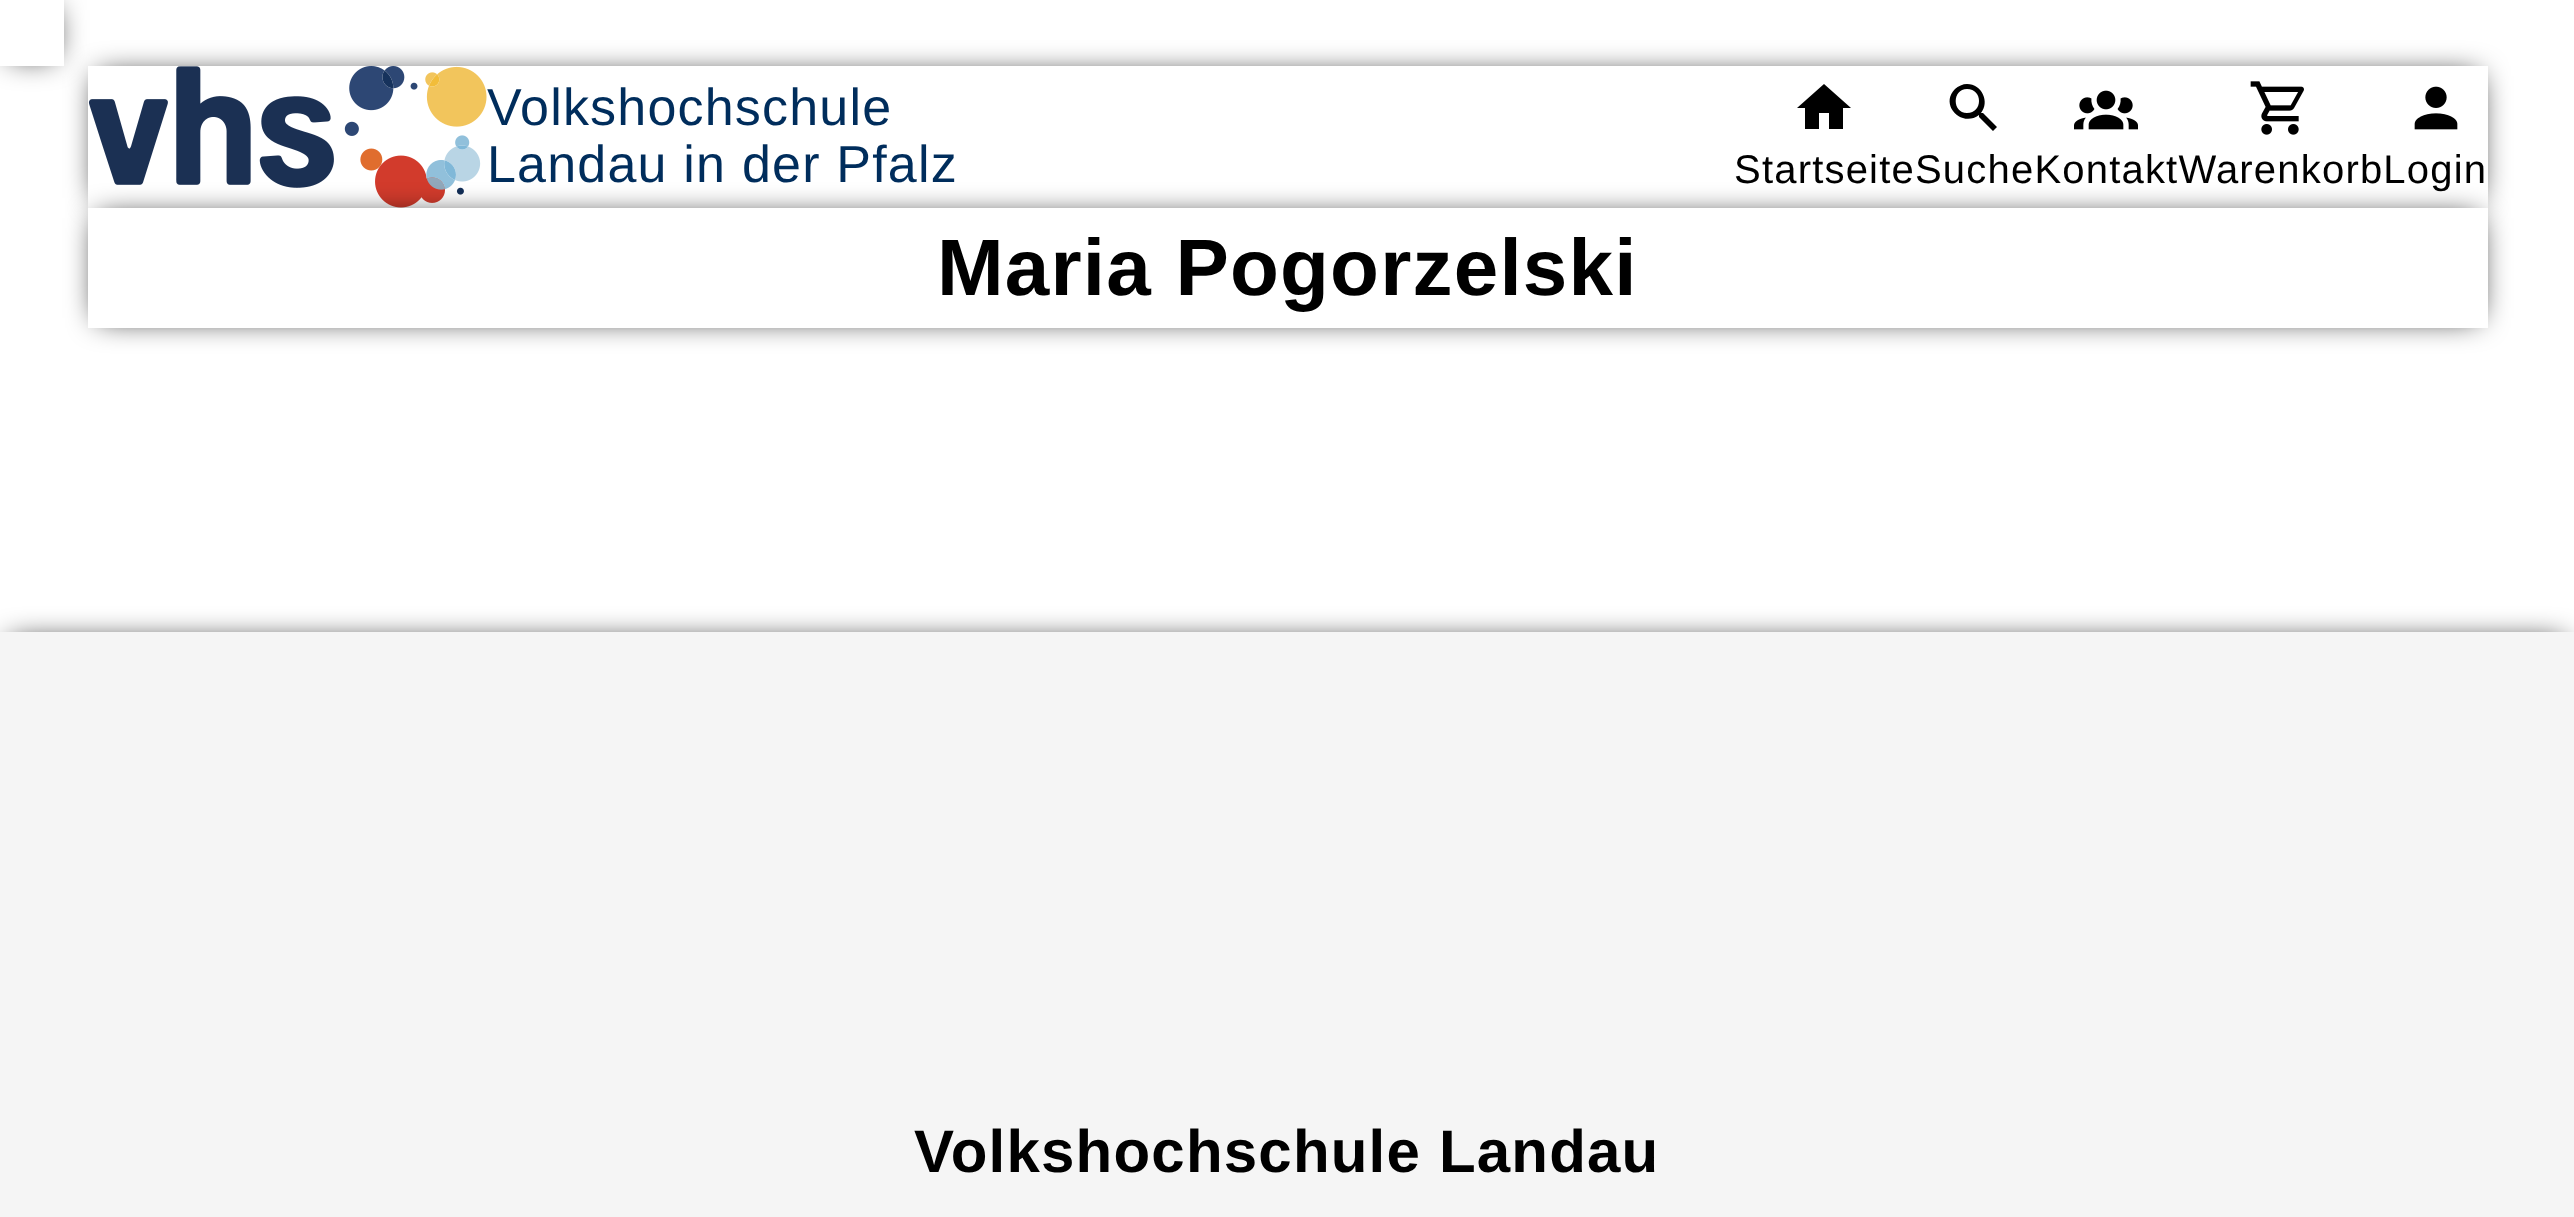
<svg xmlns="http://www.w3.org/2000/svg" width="2574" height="1217">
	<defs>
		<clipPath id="clip1"><path d="M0 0H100V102H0ZM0 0H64V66H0Z" clip-rule="evenodd" /></clipPath>
		<clipPath id="clip2"><path d="M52 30H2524V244H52ZM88 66H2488V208H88Z" clip-rule="evenodd" /></clipPath>
	</defs>
	<rect width="100%" height="100%" fill="#FFFFFF" />
	<g clip-path="url(#clip1)">
		<rect x="10" y="10" width="44" height="46" fill="#000000" filter="blur(15px)" />
	</g>
	<g clip-path="url(#clip2)">
		<rect x="98" y="76" width="2380" height="122" fill="#000000" filter="blur(15px)" />
	</g>
	<image x="88" y="66" width="399" height="142" href="assets/img1.png" />
	<g font-family="Liberation Sans" font-size="52" letter-spacing="1.2" fill="#002D5C">
		<text x="487" y="125">Volkshochschule</text>
		<text x="487" y="182">Landau in der Pfalz</text>
	</g>
	<path d="M1967 84C1982 84 1990 102 1981 113H1983L1997 127L1993 131L1979 117V115C1962 128 1939 105 1955 89C1958 86 1963 84 1967 84M1967 89C1952 89 1952 113 1967 113C1983 113 1983 89 1967 89Z" fill="#000000" />
	<image x="2074" y="90" width="64" height="40" href="assets/img2.png" />
	<image x="2250" y="81" width="54" height="54" href="assets/img3.png" />
	<image x="2414" y="86" width="44" height="44" href="assets/img4.png" />
	<path d="M1819 129V113H1829V129H1843V108H1851L1824 84L1797 108H1805V129Z" fill="#000000" />
	<text x="1734" y="183" font-family="Liberation Sans" font-size="40" letter-spacing="1.2" fill="#000000">StartseiteSucheKontaktWarenkorbLogin</text>
	<rect x="98" y="218" width="2380" height="100" fill="#000000" filter="blur(15px)" />
	<rect x="88" y="208" width="2400" height="120" fill="#FFFFFF" />
	<text x="937" y="295" font-family="Liberation Sans" font-size="80" font-weight="700" letter-spacing="1.2" fill="#000000">Maria Pogorzelski</text>
	<rect x="10" y="642" width="2554" height="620" fill="#000000" filter="blur(15px)" />
	<rect x="0" y="632" width="2574" height="585" fill="#F5F5F5" />
	<text x="914" y="1172" font-family="Liberation Sans" font-size="60" font-weight="700" letter-spacing="1.2" fill="#000000">Volkshochschule Landau</text>
</svg>
